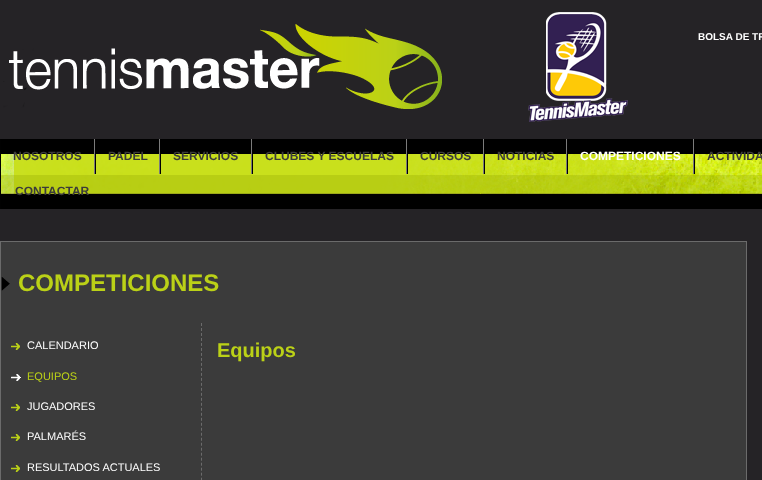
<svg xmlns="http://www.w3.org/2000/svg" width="762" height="480">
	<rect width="100%" height="100%" fill="#252326" />
	<image x="3" y="12" width="625" height="110" href="assets/img1.png" />
	<text x="698" y="40" font-family="Liberation Sans" font-size="10" font-weight="700" fill="#FFFFFF">BOLSA DE TR</text>
	<rect x="1" y="139" width="761" height="70" fill="#000000" />
	<image x="1" y="154" width="761" height="40" href="assets/img2.png" />
	<rect x="94" y="139" width="1" height="35" fill="#7B7B7B" />
	<rect x="0" y="139" width="1" height="70" fill="#010101" />
	<text x="13" y="160" font-family="Liberation Sans" font-size="12" font-weight="700" fill="#3B3B3B">NOSOTROS</text>
	<rect x="159" y="139" width="1" height="35" fill="#7B7B7B" />
	<rect x="95" y="154" width="1" height="20" fill="#010101" />
	<text x="108" y="160" font-family="Liberation Sans" font-size="12" font-weight="700" fill="#3B3B3B">PADEL</text>
	<rect x="251" y="139" width="1" height="35" fill="#7B7B7B" />
	<rect x="160" y="154" width="1" height="20" fill="#010101" />
	<text x="173" y="160" font-family="Liberation Sans" font-size="12" font-weight="700" fill="#3B3B3B">SERVICIOS</text>
	<rect x="406" y="139" width="1" height="35" fill="#7B7B7B" />
	<rect x="252" y="154" width="1" height="20" fill="#010101" />
	<text x="265" y="160" font-family="Liberation Sans" font-size="12" font-weight="700" fill="#3B3B3B">CLUBES Y ESCUELAS</text>
	<rect x="483" y="139" width="1" height="35" fill="#7B7B7B" />
	<rect x="407" y="154" width="1" height="20" fill="#010101" />
	<text x="420" y="160" font-family="Liberation Sans" font-size="12" font-weight="700" fill="#3B3B3B">CURSOS</text>
	<rect x="566" y="139" width="1" height="35" fill="#7B7B7B" />
	<rect x="484" y="154" width="1" height="20" fill="#010101" />
	<text x="497" y="160" font-family="Liberation Sans" font-size="12" font-weight="700" fill="#3B3B3B">NOTICIAS</text>
	<rect x="693" y="139" width="1" height="35" fill="#7B7B7B" />
	<rect x="567" y="154" width="1" height="20" fill="#010101" />
	<text x="580" y="160" font-family="Liberation Sans" font-size="12" font-weight="700" fill="#FFFFFF">COMPETICIONES</text>
	<rect x="694" y="154" width="1" height="20" fill="#010101" />
	<g font-family="Liberation Sans" font-size="12" font-weight="700" fill="#3B3B3B">
		<text x="707" y="160">ACTIVIDA</text>
		<text x="15" y="195">CONTACTAR</text>
	</g>
	<rect x="0.5" y="241.5" width="746" height="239" fill="#3B3B3B" stroke="#6B6B6B" />
	<image x="1" y="277" width="9" height="14" href="assets/img3.png" />
	<text x="18" y="291" font-family="Liberation Sans" font-size="24" font-weight="700" fill="#BBD117">COMPETICIONES</text>
	<image x="11" y="343" width="9" height="7" href="assets/img4.png" />
	<text x="27" y="349" font-family="Liberation Sans" font-size="11" fill="#FFFFFF">CALENDARIO</text>
	<image x="11" y="374" width="10" height="7" href="assets/img5.png" />
	<text x="27" y="380" font-family="Liberation Sans" font-size="11" fill="#BBD117">EQUIPOS</text>
	<image x="11" y="404" width="9" height="7" href="assets/img4.png" />
	<text x="27" y="410" font-family="Liberation Sans" font-size="11" fill="#FFFFFF">JUGADORES</text>
	<image x="11" y="434" width="9" height="7" href="assets/img4.png" />
	<text x="27" y="440" font-family="Liberation Sans" font-size="11" fill="#FFFFFF">PALMARÉS</text>
	<image x="11" y="465" width="9" height="7" href="assets/img4.png" />
	<text x="27" y="471" font-family="Liberation Sans" font-size="11" fill="#FFFFFF">RESULTADOS ACTUALES</text>
	<path d="M201.5 323V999" fill="none" stroke="#6B6B6B" stroke-dasharray="3 1.99" />
	<text x="217" y="357" font-family="Liberation Sans" font-size="20" font-weight="700" fill="#BBD117">Equipos</text>
</svg>
